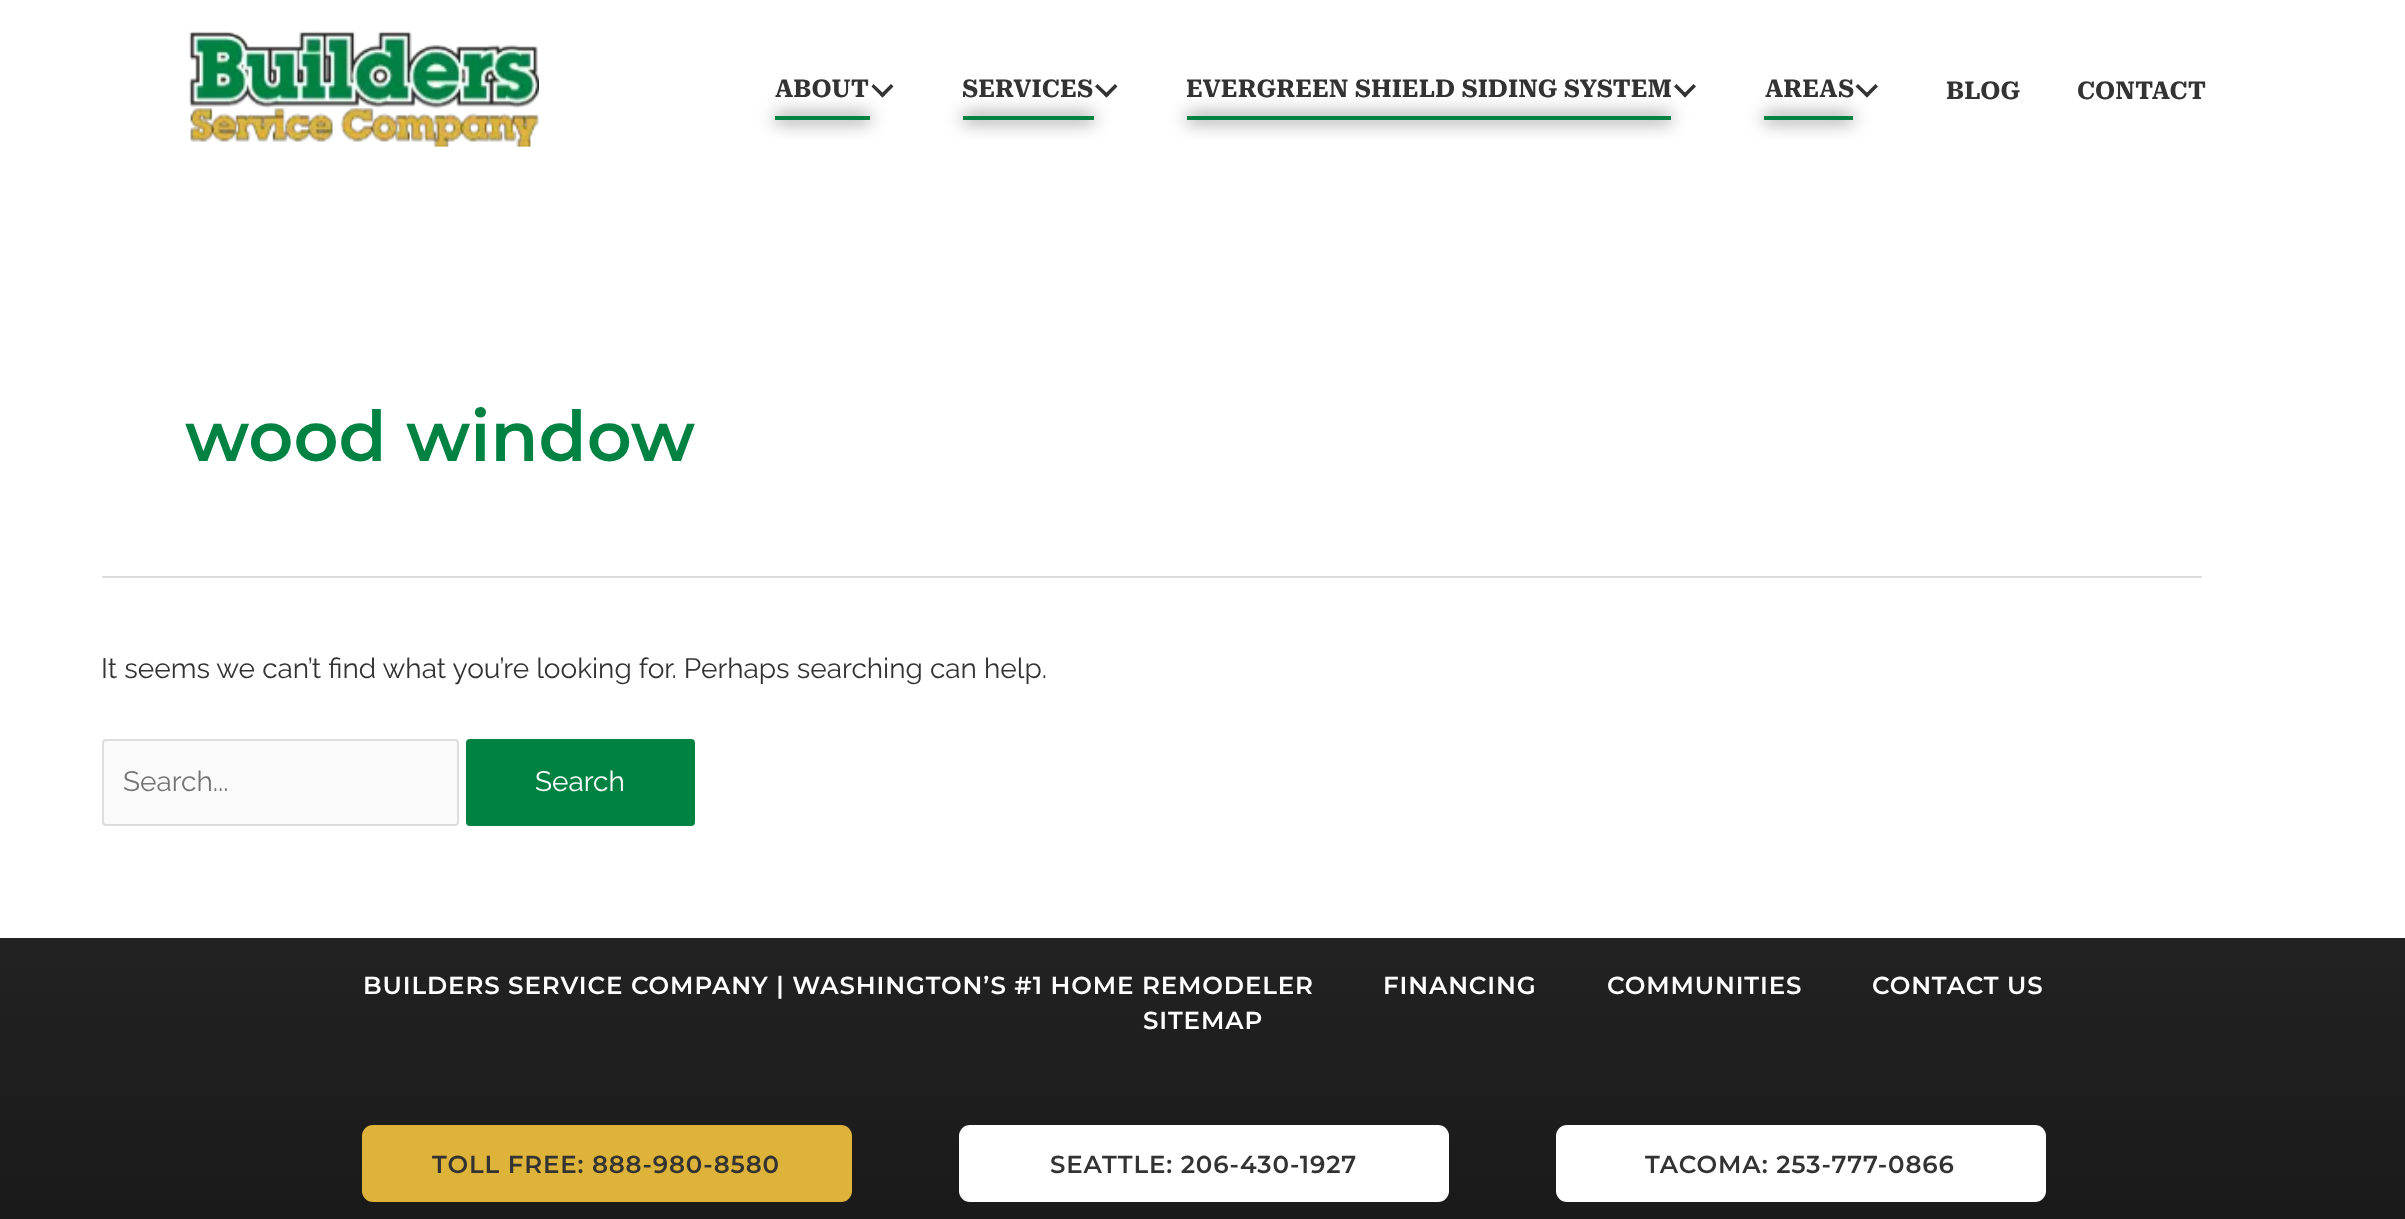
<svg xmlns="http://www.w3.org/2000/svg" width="2405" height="1219">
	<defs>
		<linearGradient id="g1" gradientUnits="userSpaceOnUse" x1="1203" y1="938" x2="1203" y2="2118"><stop offset="0" stop-color="#222222" /><stop offset="1" stop-color="#000000" /></linearGradient>
	</defs>
	<rect width="100%" height="100%" fill="#FFFFFF" />
	<image x="189" y="31" width="350" height="116" href="assets/img1.png" />
	<rect x="775" y="116" width="95" height="4" fill="#000000" filter="blur(9px)" />
	<text x="775" y="97" font-family="Roboto Serif" font-size="24.5" font-weight="700" fill="#333333">ABOUT</text>
	<path d="M891 84L893.5 86.5L882.5 97.5L880 95Z" fill="#333333" />
	<path d="M873.5 84L885 95L882.5 97.5L871.5 86.5Z" fill="#333333" />
	<rect x="775" y="116" width="95" height="4" fill="#008242" />
	<rect x="963" y="116" width="131" height="4" fill="#000000" filter="blur(9px)" />
	<text x="962" y="97" font-family="Roboto Serif" font-size="24.5" font-weight="700" fill="#333333">SERVICES</text>
	<path d="M1115 84L1117.5 86.5L1106.5 97.5L1104 95Z" fill="#333333" />
	<path d="M1097.5 84L1109 95L1106.5 97.5L1095 86.5Z" fill="#333333" />
	<rect x="963" y="116" width="131" height="4" fill="#008242" />
	<rect x="1187" y="116" width="484" height="4" fill="#000000" filter="blur(9px)" />
	<text x="1186" y="97" font-family="Roboto Serif" font-size="24.5" font-weight="700" fill="#333333">EVERGREEN SHIELD SIDING SYSTEM</text>
	<path d="M1693.5 84L1696 86.5L1685 97.5L1682.5 95Z" fill="#333333" />
	<path d="M1676.5 84L1687.5 95L1685 97.5L1674 86.5Z" fill="#333333" />
	<rect x="1187" y="116" width="484" height="4" fill="#008242" />
	<rect x="1764" y="116" width="89" height="4" fill="#000000" filter="blur(9px)" />
	<text x="1765" y="97" font-family="Roboto Serif" font-size="24.5" font-weight="700" fill="#333333">AREAS</text>
	<path d="M1875.5 84L1878 86.5L1867 97.5L1864.5 95Z" fill="#333333" />
	<path d="M1858 84L1869.5 95L1867 97.5L1855.5 86.5Z" fill="#333333" />
	<rect x="1764" y="116" width="89" height="4" fill="#008242" />
	<g font-family="Roboto Serif" font-size="24.5" font-weight="700" fill="#333333">
		<text x="1946" y="99">BLOG</text>
		<text x="2077" y="99">CONTACT</text>
	</g>
	<rect x="102" y="576" width="2100" height="2" fill="#DDDDDD" />
	<text x="185" y="461" font-family="Montserrat" font-size="70" font-weight="600" fill="#008242">wood window</text>
	<text x="101" y="678" font-family="Raleway" font-size="28" font-weight="100" fill="#333333">It seems we can’t find what you’re looking for. Perhaps searching can help.</text>
	<rect x="103" y="740" width="355" height="85" rx="3" fill="#FAFAFA" stroke="#DDDDDD" stroke-width="2" />
	<text x="123" y="791" font-family="Raleway" font-size="28" font-weight="100" fill="#757575">Search...</text>
	<rect x="466" y="739" width="229" height="87" rx="4" fill="#008242" />
	<text x="535" y="791" font-family="Raleway" font-size="28" font-weight="100" fill="#FFFFFF">Search</text>
	<rect x="0" y="938" width="2405" height="281" fill="url(#g1)" />
	<g font-family="Montserrat" font-size="24.5" font-weight="600" letter-spacing="0.88" fill="#FFFFFF">
		<text x="363" y="994">BUILDERS SERVICE COMPANY | WASHINGTON’S #1 HOME REMODELER</text>
		<text x="1383" y="994">FINANCING</text>
		<text x="1607" y="994">COMMUNITIES</text>
		<text x="1872" y="994">CONTACT US</text>
		<text x="1143" y="1029">SITEMAP</text>
	</g>
	<rect x="362" y="1125" width="490" height="77" rx="11" fill="#DEB339" />
	<text x="432" y="1173" font-family="Montserrat" font-size="24.5" font-weight="600" letter-spacing="0.88" fill="#333333">TOLL FREE: 888-980-8580</text>
	<rect x="959" y="1125" width="490" height="77" rx="11" fill="#FFFFFF" />
	<text x="1050" y="1173" font-family="Montserrat" font-size="24.5" font-weight="600" letter-spacing="0.88" fill="#333333">SEATTLE: 206-430-1927</text>
	<rect x="1556" y="1125" width="490" height="77" rx="11" fill="#FFFFFF" />
	<text x="1645" y="1173" font-family="Montserrat" font-size="24.5" font-weight="600" letter-spacing="0.88" fill="#333333">TACOMA: 253-777-0866</text>
</svg>
